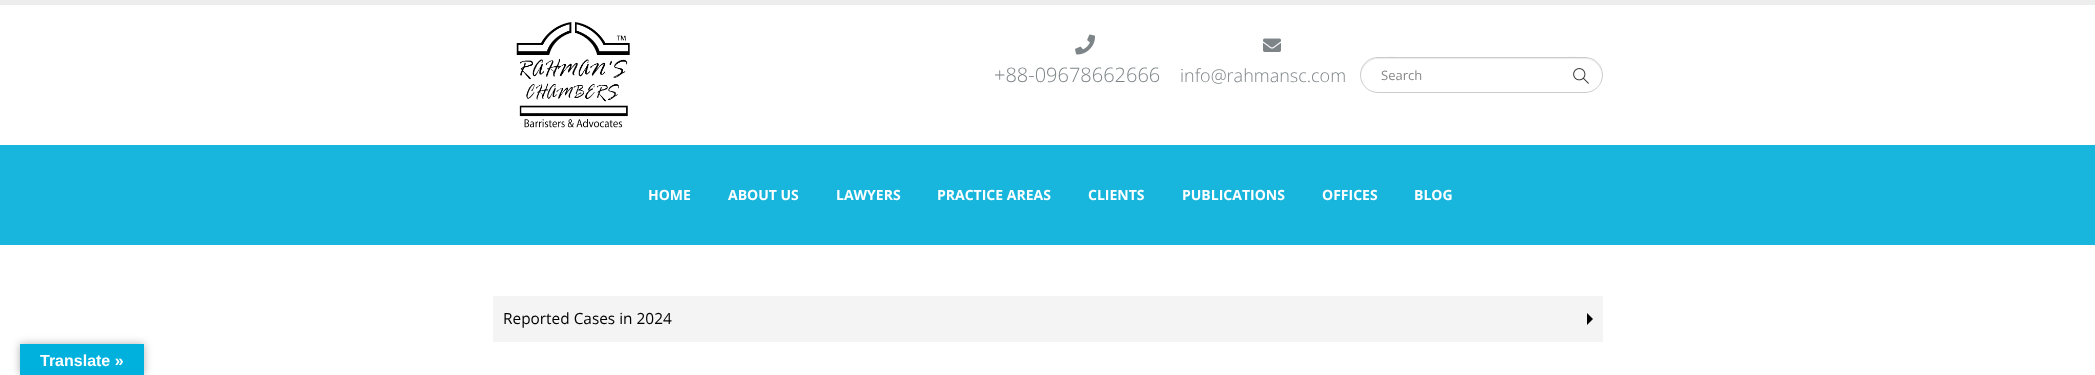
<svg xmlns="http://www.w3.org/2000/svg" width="2095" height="375">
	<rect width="100%" height="100%" fill="#FFFFFF" />
	<rect x="0" y="0" width="2095" height="5" fill="#EDEDED" />
	<image x="516" y="22" width="114" height="106" href="assets/img1.png" />
	<image x="1075" y="34" width="20" height="21" href="assets/img2.png" />
	<text x="994" y="82" font-family="Open Sans" font-size="20" font-weight="300" fill="#7E8588">+88-09678662666</text>
	<image x="1263" y="38" width="18" height="14" href="assets/img3.png" />
	<text x="1180" y="82" font-family="Open Sans" font-size="18" font-weight="300" fill="#7E8588">info@rahmansc.com</text>
	<path d="M1378 59H1585C1594 59 1602 67 1602 76C1603 50 1562 58 1550 58H1412C1401 58 1360 50 1361 76C1361 67 1369 59 1378 59Z" fill="#ECECEC" />
	<rect x="1360.5" y="57.5" width="242" height="35" rx="17.5" fill="none" stroke="#CCCCCC" />
	<text x="1381" y="80" font-family="Open Sans" font-size="13" fill="#888888">Search</text>
	<image x="1573" y="68" width="16" height="16" href="assets/img4.png" />
	<rect x="0" y="145" width="2095" height="100" fill="#18B6DD" />
	<g font-family="Open Sans" font-size="14" font-weight="700" fill="#FFFFFF">
		<text x="648" y="200">HOME</text>
		<text x="728" y="200">ABOUT US</text>
		<text x="836" y="200">LAWYERS</text>
		<text x="937" y="200">PRACTICE AREAS</text>
		<text x="1088" y="200">CLIENTS</text>
		<text x="1182" y="200">PUBLICATIONS</text>
		<text x="1322" y="200">OFFICES</text>
		<text x="1414" y="200">BLOG</text>
	</g>
	<rect x="493" y="296" width="1110" height="46" fill="#F4F4F4" />
	<text x="503" y="324" font-family="Open Sans" font-size="15.4" fill="#000000">Reported Cases in 2024</text>
	<path d="M1587 325V313L1593 319Z" fill="#000000" />
	<rect x="20" y="344" width="124" height="31" fill="#000000" fill-opacity="0.3" filter="blur(4.5px)" />
	<rect x="20" y="344" width="124" height="31" fill="#00B1DD" />
	<text x="40" y="366" font-family="Liberation Sans" font-size="16" font-weight="700" fill="#FFFFFF">Translate »</text>
</svg>
